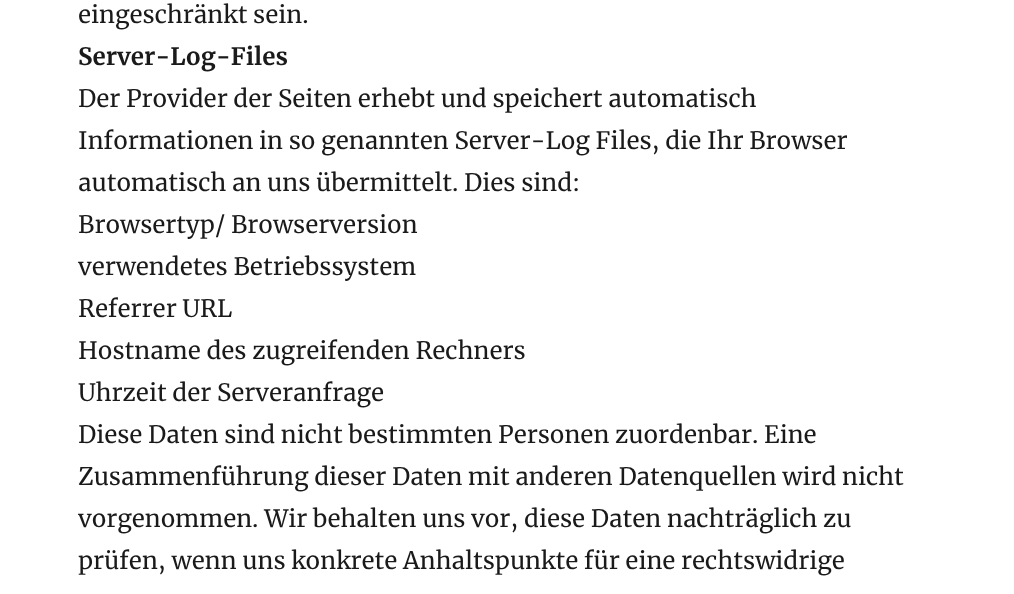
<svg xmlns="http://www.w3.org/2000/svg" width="1014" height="594">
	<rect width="100%" height="100%" fill="#FFFFFF" />
	<text x="78" y="23" font-family="Merriweather" font-size="24" fill="#1A1A1A">eingeschränkt sein.</text>
	<text x="78" y="65" font-family="Merriweather" font-size="24" font-weight="700" fill="#1A1A1A">Server-Log-Files</text>
	<g font-family="Merriweather" font-size="24" fill="#1A1A1A">
		<text x="78" y="107">Der Provider der Seiten erhebt und speichert automatisch</text>
		<text x="78" y="149">Informationen in so genannten Server-Log Files, die Ihr Browser</text>
		<text x="78" y="191">automatisch an uns übermittelt. Dies sind:</text>
		<text x="78" y="233">Browsertyp/ Browserversion</text>
		<text x="78" y="275">verwendetes Betriebssystem</text>
		<text x="78" y="317">Referrer URL</text>
		<text x="78" y="359">Hostname des zugreifenden Rechners</text>
		<text x="78" y="401">Uhrzeit der Serveranfrage</text>
		<text x="78" y="443">Diese Daten sind nicht bestimmten Personen zuordenbar. Eine</text>
		<text x="78" y="485">Zusammenführung dieser Daten mit anderen Datenquellen wird nicht</text>
		<text x="78" y="527">vorgenommen. Wir behalten uns vor, diese Daten nachträglich zu</text>
		<text x="78" y="569">prüfen, wenn uns konkrete Anhaltspunkte für eine rechtswidrige</text>
	</g>
</svg>
